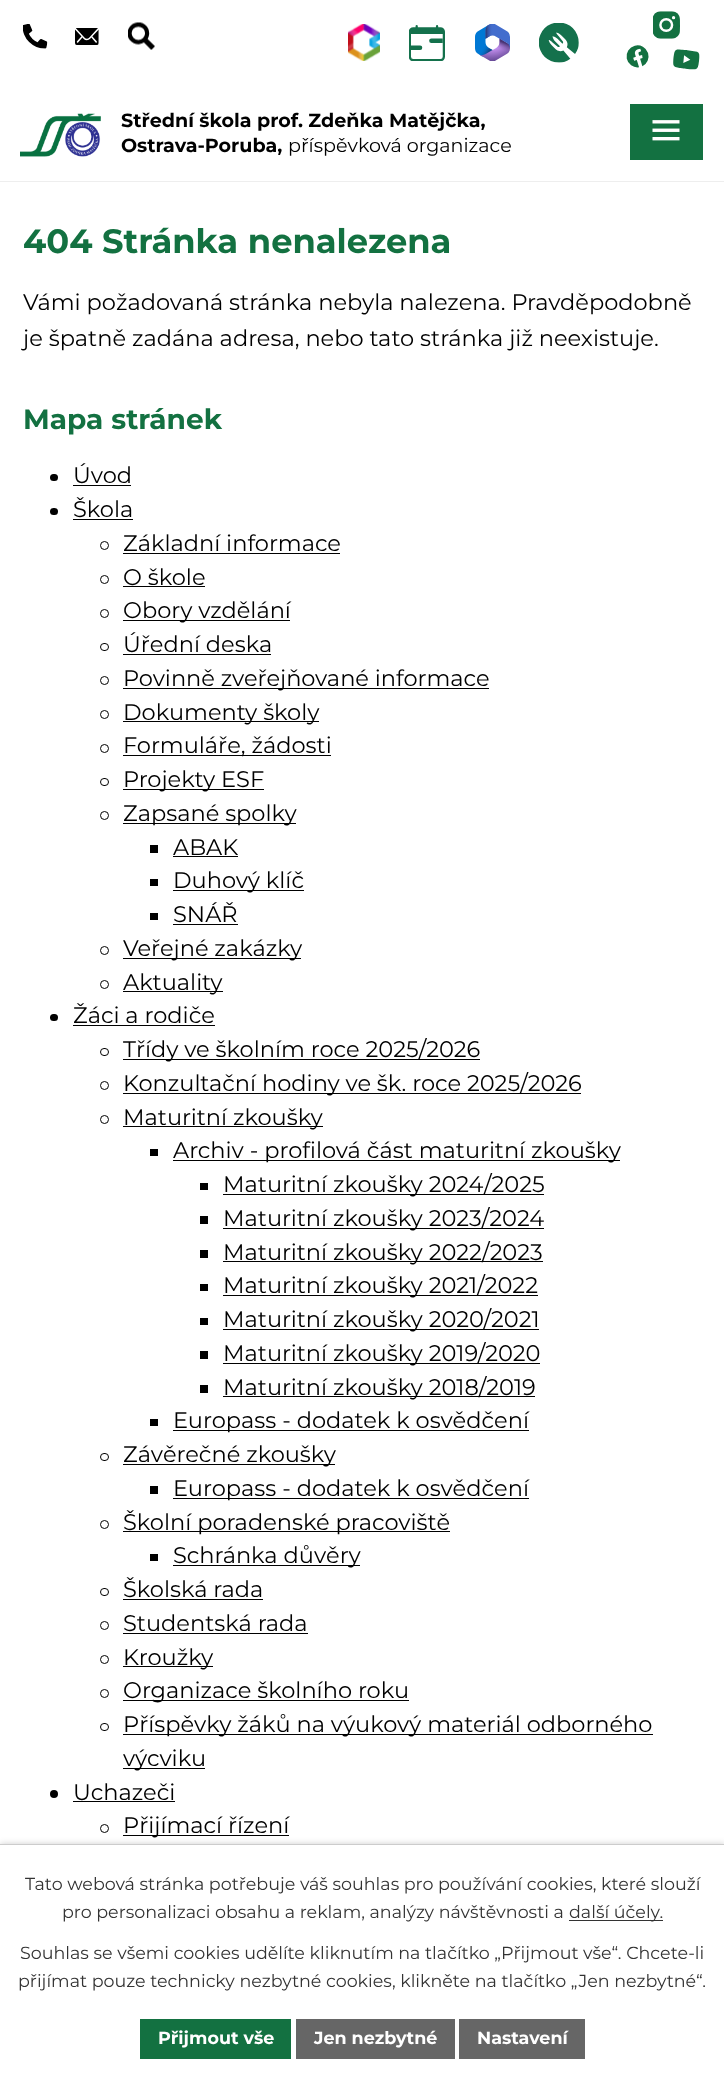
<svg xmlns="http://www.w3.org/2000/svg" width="724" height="2082">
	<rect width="100%" height="100%" fill="#FFFFFF" />
	<rect x="0" y="181" width="724" height="1" fill="#EEEEEE" />
	<image x="23" y="24" width="25" height="25" href="assets/img1.png" />
	<image x="75" y="28" width="24" height="17" href="assets/img2.png" />
	<image x="128" y="22" width="27" height="28" href="assets/img3.png" />
	<image x="348" y="24" width="32" height="37" href="assets/img4.png" />
	<image x="409" y="25" width="36" height="36" href="assets/img5.png" />
	<image x="475" y="24" width="35" height="37" href="assets/img6.png" />
	<image x="539" y="23" width="40" height="40" href="assets/img7.png" />
	<image x="653" y="11" width="27" height="28" href="assets/img8.png" />
	<image x="626" y="45" width="23" height="23" href="assets/img9.png" />
	<image x="673" y="49" width="27" height="21" href="assets/img10.png" />
	<image x="20" y="113" width="81" height="44" href="assets/img11.png" />
	<g font-family="Montserrat" font-size="19.1" font-weight="700" fill="#000000">
		<text x="121" y="127">Střední škola prof. Zdeňka Matějčka,</text>
		<text x="121" y="152">Ostrava-Poruba,</text>
	</g>
	<text x="288" y="152" font-family="Montserrat" font-size="19.1" fill="#000000">příspěvková organizace</text>
	<rect x="630" y="104" width="73" height="56" fill="#137141" />
	<image x="652" y="120" width="28" height="21" href="assets/img12.png" />
	<text x="23" y="253" font-family="Montserrat" font-size="33.75" font-weight="700" fill="#137141">404 Stránka nenalezena</text>
	<g font-family="Montserrat" font-size="22.5" fill="#000000">
		<text x="23" y="310">Vámi požadovaná stránka nebyla nalezena. Pravděpodobně</text>
		<text x="23" y="346">je špatně zadána adresa, nebo tato stránka již neexistuje.</text>
	</g>
	<text x="23" y="429" font-family="Montserrat" font-size="28" font-weight="700" fill="#137141">Mapa stránek</text>
	<rect x="50" y="474" width="8" height="7" rx="3.5" fill="#000000" />
	<text x="73" y="483" font-family="Montserrat" font-size="22.5" fill="#000000">Úvod</text>
	<rect x="73" y="485" width="58" height="1" fill="#000000" />
	<rect x="50" y="508" width="8" height="7" rx="3.5" fill="#000000" />
	<text x="73" y="517" font-family="Montserrat" font-size="22.5" fill="#000000">Škola</text>
	<rect x="73" y="519" width="60" height="1" fill="#000000" />
	<circle cx="104.5" cy="545.5" r="4" fill="none" stroke="#000000" />
	<text x="123" y="551" font-family="Montserrat" font-size="22.5" fill="#000000">Základní informace</text>
	<rect x="123" y="553" width="217" height="1" fill="#000000" />
	<circle cx="104.5" cy="579.5" r="4" fill="none" stroke="#000000" />
	<text x="123" y="585" font-family="Montserrat" font-size="22.5" fill="#000000">O škole</text>
	<rect x="123" y="586" width="82" height="1" fill="#000000" />
	<circle cx="104.5" cy="613.5" r="4" fill="none" stroke="#000000" />
	<rect x="123" y="620" width="167" height="1" fill="#000000" />
	<text x="123" y="618" font-family="Montserrat" font-size="22.5" fill="#000000">Obory vzdělání</text>
	<rect x="100.5" y="643.5" width="8" height="7" rx="3.5" fill="none" stroke="#000000" />
	<text x="123" y="652" font-family="Montserrat" font-size="22.5" fill="#000000">Úřední deska</text>
	<rect x="123" y="654" width="148" height="1" fill="#000000" />
	<circle cx="104.5" cy="680.5" r="4" fill="none" stroke="#000000" />
	<rect x="123" y="688" width="366" height="1" fill="#000000" />
	<text x="123" y="686" font-family="Montserrat" font-size="22.5" fill="#000000">Povinně zveřejňované informace</text>
	<circle cx="104.5" cy="714.5" r="4" fill="none" stroke="#000000" />
	<rect x="123" y="721" width="196" height="1" fill="#000000" />
	<text x="123" y="720" font-family="Montserrat" font-size="22.5" fill="#000000">Dokumenty školy</text>
	<circle cx="104.5" cy="748.5" r="4" fill="none" stroke="#000000" />
	<rect x="123" y="755" width="208" height="1" fill="#000000" />
	<text x="123" y="753" font-family="Montserrat" font-size="22.5" fill="#000000">Formuláře, žádosti</text>
	<rect x="100.5" y="778.5" width="8" height="7" rx="3.5" fill="none" stroke="#000000" />
	<rect x="123" y="789" width="141" height="1" fill="#000000" />
	<text x="123" y="787" font-family="Montserrat" font-size="22.5" fill="#000000">Projekty ESF</text>
	<circle cx="104.5" cy="815.5" r="4" fill="none" stroke="#000000" />
	<rect x="123" y="823" width="173" height="1" fill="#000000" />
	<text x="123" y="821" font-family="Montserrat" font-size="22.5" fill="#000000">Zapsané spolky</text>
	<rect x="150" y="845" width="8" height="8" fill="#000000" />
	<text x="173" y="855" font-family="Montserrat" font-size="22.5" fill="#000000">ABAK</text>
	<rect x="173" y="856" width="65" height="1" fill="#000000" />
	<rect x="150" y="879" width="8" height="7" fill="#000000" />
	<rect x="173" y="890" width="131" height="1" fill="#000000" />
	<text x="173" y="888" font-family="Montserrat" font-size="22.5" fill="#000000">Duhový klíč</text>
	<rect x="150" y="913" width="8" height="7" fill="#000000" />
	<text x="173" y="922" font-family="Montserrat" font-size="22.5" fill="#000000">SNÁŘ</text>
	<rect x="173" y="924" width="65" height="1" fill="#000000" />
	<circle cx="104.5" cy="950.5" r="4" fill="none" stroke="#000000" />
	<rect x="123" y="958" width="178" height="1" fill="#000000" />
	<text x="123" y="956" font-family="Montserrat" font-size="22.5" fill="#000000">Veřejné zakázky</text>
	<circle cx="104.5" cy="984.5" r="4" fill="none" stroke="#000000" />
	<rect x="123" y="991" width="100" height="1" fill="#000000" />
	<text x="123" y="990" font-family="Montserrat" font-size="22.5" fill="#000000">Aktuality</text>
	<rect x="50" y="1014" width="8" height="7" rx="3.5" fill="#000000" />
	<text x="73" y="1023" font-family="Montserrat" font-size="22.5" fill="#000000">Žáci a rodiče</text>
	<rect x="73" y="1025" width="142" height="1" fill="#000000" />
	<rect x="100.5" y="1048.5" width="8" height="7" rx="3.5" fill="none" stroke="#000000" />
	<rect x="123" y="1059" width="357" height="1" fill="#000000" />
	<text x="123" y="1057" font-family="Montserrat" font-size="22.5" fill="#000000">Třídy ve školním roce 2025/2026</text>
	<circle cx="104.5" cy="1085.5" r="4" fill="none" stroke="#000000" />
	<rect x="123" y="1093" width="458" height="1" fill="#000000" />
	<text x="123" y="1091" font-family="Montserrat" font-size="22.5" fill="#000000">Konzultační hodiny ve šk. roce 2025/2026</text>
	<circle cx="104.5" cy="1119.5" r="4" fill="none" stroke="#000000" />
	<rect x="123" y="1126" width="200" height="1" fill="#000000" />
	<text x="123" y="1125" font-family="Montserrat" font-size="22.5" fill="#000000">Maturitní zkoušky</text>
	<rect x="150" y="1149" width="8" height="7" fill="#000000" />
	<rect x="173" y="1160" width="447" height="1" fill="#000000" />
	<text x="173" y="1158" font-family="Montserrat" font-size="22.5" fill="#000000">Archiv - profilová část maturitní zkoušky</text>
	<rect x="200" y="1183" width="8" height="7" fill="#000000" />
	<rect x="223" y="1194" width="321" height="1" fill="#000000" />
	<text x="223" y="1192" font-family="Montserrat" font-size="22.5" fill="#000000">Maturitní zkoušky 2024/2025</text>
	<rect x="200" y="1216" width="8" height="8" fill="#000000" />
	<rect x="223" y="1228" width="321" height="1" fill="#000000" />
	<text x="223" y="1226" font-family="Montserrat" font-size="22.5" fill="#000000">Maturitní zkoušky 2023/2024</text>
	<rect x="200" y="1250" width="8" height="8" fill="#000000" />
	<rect x="223" y="1261" width="320" height="1" fill="#000000" />
	<text x="223" y="1260" font-family="Montserrat" font-size="22.5" fill="#000000">Maturitní zkoušky 2022/2023</text>
	<rect x="200" y="1284" width="8" height="7" fill="#000000" />
	<rect x="223" y="1295" width="315" height="1" fill="#000000" />
	<text x="223" y="1293" font-family="Montserrat" font-size="22.5" fill="#000000">Maturitní zkoušky 2021/2022</text>
	<rect x="200" y="1318" width="8" height="7" fill="#000000" />
	<rect x="223" y="1329" width="316" height="1" fill="#000000" />
	<text x="223" y="1327" font-family="Montserrat" font-size="22.5" fill="#000000">Maturitní zkoušky 2020/2021</text>
	<rect x="200" y="1351" width="8" height="8" fill="#000000" />
	<rect x="223" y="1363" width="317" height="1" fill="#000000" />
	<text x="223" y="1361" font-family="Montserrat" font-size="22.5" fill="#000000">Maturitní zkoušky 2019/2020</text>
	<rect x="200" y="1385" width="8" height="8" fill="#000000" />
	<rect x="223" y="1396" width="312" height="1" fill="#000000" />
	<text x="223" y="1395" font-family="Montserrat" font-size="22.5" fill="#000000">Maturitní zkoušky 2018/2019</text>
	<rect x="150" y="1419" width="8" height="7" fill="#000000" />
	<rect x="173" y="1430" width="356" height="1" fill="#000000" />
	<text x="173" y="1428" font-family="Montserrat" font-size="22.5" fill="#000000">Europass - dodatek k osvědčení</text>
	<rect x="100.5" y="1453.5" width="8" height="7" rx="3.5" fill="none" stroke="#000000" />
	<rect x="123" y="1464" width="212" height="1" fill="#000000" />
	<text x="123" y="1462" font-family="Montserrat" font-size="22.5" fill="#000000">Závěrečné zkoušky</text>
	<rect x="150" y="1486" width="8" height="8" fill="#000000" />
	<rect x="173" y="1498" width="356" height="1" fill="#000000" />
	<text x="173" y="1496" font-family="Montserrat" font-size="22.5" fill="#000000">Europass - dodatek k osvědčení</text>
	<circle cx="104.5" cy="1524.5" r="4" fill="none" stroke="#000000" />
	<rect x="123" y="1531" width="327" height="1" fill="#000000" />
	<text x="123" y="1530" font-family="Montserrat" font-size="22.5" fill="#000000">Školní poradenské pracoviště</text>
	<rect x="150" y="1554" width="8" height="7" fill="#000000" />
	<rect x="173" y="1565" width="187" height="1" fill="#000000" />
	<text x="173" y="1563" font-family="Montserrat" font-size="22.5" fill="#000000">Schránka důvěry</text>
	<rect x="100.5" y="1588.5" width="8" height="7" rx="3.5" fill="none" stroke="#000000" />
	<text x="123" y="1597" font-family="Montserrat" font-size="22.5" fill="#000000">Školská rada</text>
	<rect x="123" y="1599" width="140" height="1" fill="#000000" />
	<circle cx="104.5" cy="1625.5" r="4" fill="none" stroke="#000000" />
	<text x="123" y="1631" font-family="Montserrat" font-size="22.5" fill="#000000">Studentská rada</text>
	<rect x="123" y="1633" width="185" height="1" fill="#000000" />
	<circle cx="104.5" cy="1659.5" r="4" fill="none" stroke="#000000" />
	<rect x="123" y="1666" width="90" height="1" fill="#000000" />
	<text x="123" y="1665" font-family="Montserrat" font-size="22.5" fill="#000000">Kroužky</text>
	<circle cx="104.5" cy="1693.5" r="4" fill="none" stroke="#000000" />
	<rect x="123" y="1700" width="286" height="1" fill="#000000" />
	<text x="123" y="1698" font-family="Montserrat" font-size="22.5" fill="#000000">Organizace školního roku</text>
	<rect x="100.5" y="1723.5" width="8" height="7" rx="3.5" fill="none" stroke="#000000" />
	<rect x="123" y="1734" width="530" height="1" fill="#000000" />
	<text x="123" y="1732" font-family="Montserrat" font-size="22.5" fill="#000000">Příspěvky žáků na výukový materiál odborného</text>
	<rect x="123" y="1768" width="82" height="1" fill="#000000" />
	<text x="123" y="1766" font-family="Montserrat" font-size="22.5" fill="#000000">výcviku</text>
	<circle cx="54" cy="1794" r="4" fill="#000000" />
	<text x="73" y="1800" font-family="Montserrat" font-size="22.5" fill="#000000">Uchazeči</text>
	<rect x="73" y="1801" width="102" height="1" fill="#000000" />
	<circle cx="104.5" cy="1828.5" r="4" fill="none" stroke="#000000" />
	<rect x="123" y="1835" width="166" height="1" fill="#000000" />
	<text x="123" y="1833" font-family="Montserrat" font-size="22.5" fill="#000000">Přijímací řízení</text>
	<rect x="0" y="1844" width="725" height="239" fill="#000000" fill-opacity="0.2" filter="blur(3px)" />
	<rect x="0" y="1845" width="724" height="237" fill="#FFFFFF" />
	<rect x="0" y="1844" width="724" height="1" fill="#CCCCCC" />
	<g font-family="Montserrat" font-size="17.5" fill="#333333">
		<text x="25" y="1890">Tato webová stránka potřebuje váš souhlas pro používání cookies, které slouží</text>
		<text x="62" y="1918">pro personalizaci obsahu a reklam, analýzy návštěvnosti a</text>
	</g>
	<rect x="569" y="1920" width="94" height="1" fill="#333333" />
	<g font-family="Montserrat" font-size="17.5" fill="#333333">
		<text x="569" y="1918">další účely.</text>
		<text x="20" y="1959">Souhlas se všemi cookies udělíte kliknutím na tlačítko „Přijmout vše“. Chcete-li</text>
		<text x="18" y="1987">přijímat pouze technicky nezbytné cookies, klikněte na tlačítko „Jen nezbytné“.</text>
	</g>
	<rect x="140" y="2019" width="151" height="40" fill="#137141" />
	<text x="158" y="2044" font-family="Montserrat" font-size="17.5" font-weight="700" fill="#FFFFFF">Přijmout vše</text>
	<rect x="296" y="2019" width="159" height="40" fill="#666666" />
	<text x="314" y="2044" font-family="Montserrat" font-size="17.5" font-weight="700" fill="#FFFFFF">Jen nezbytné</text>
	<rect x="459" y="2019" width="126" height="40" fill="#666666" />
	<text x="477" y="2044" font-family="Montserrat" font-size="17.5" font-weight="700" fill="#FFFFFF">Nastavení</text>
</svg>
